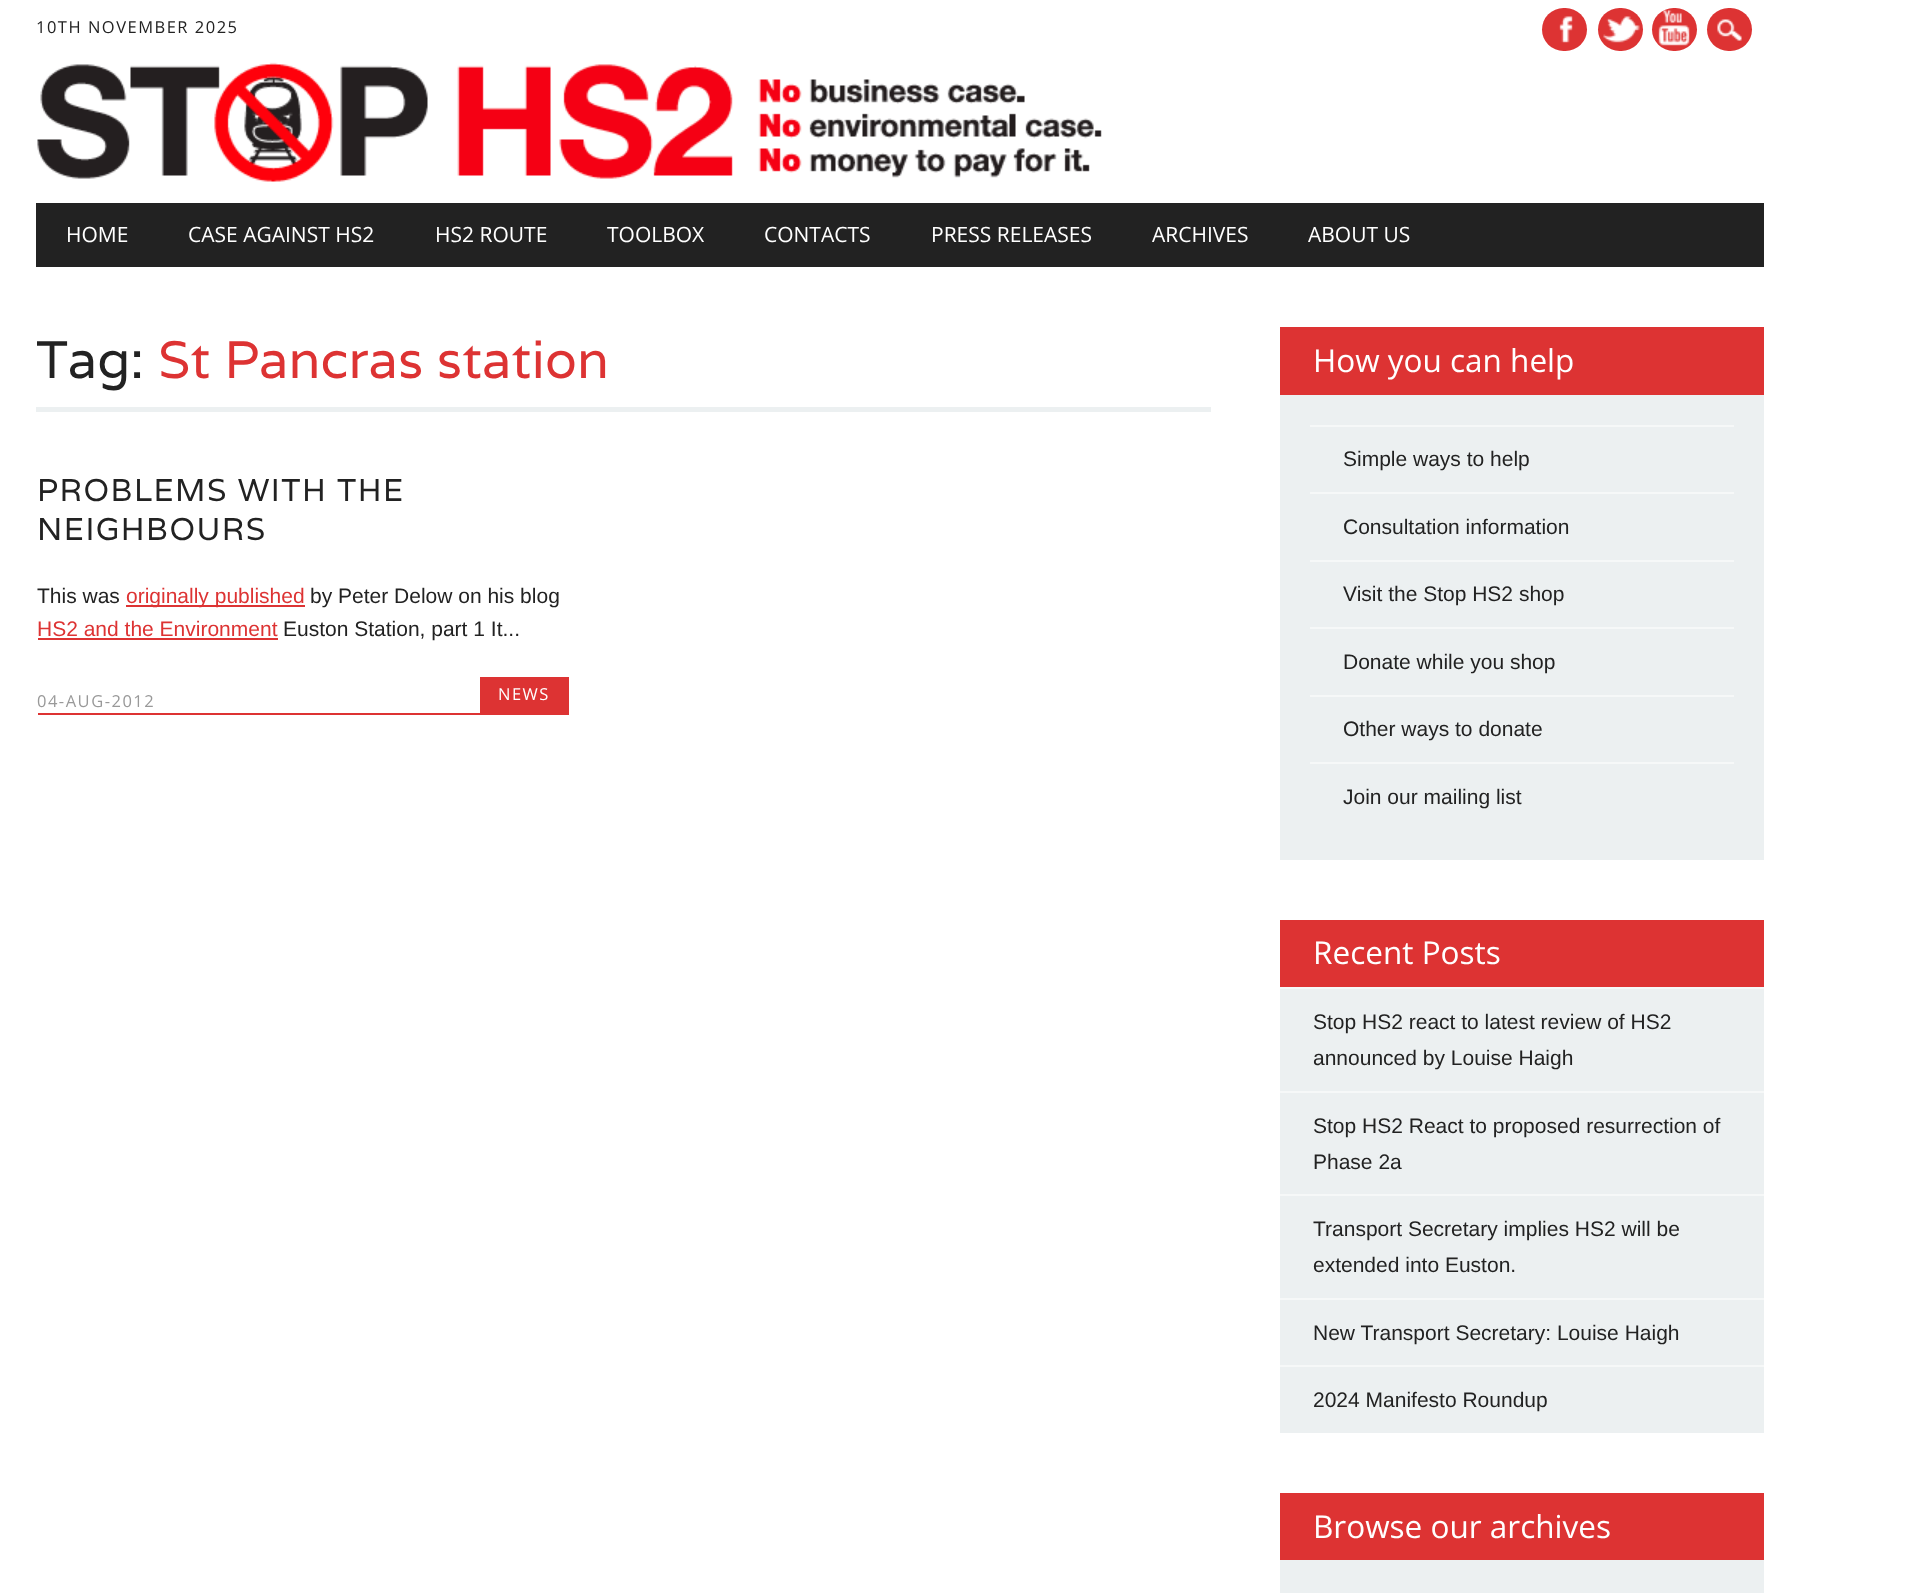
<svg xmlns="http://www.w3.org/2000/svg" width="1917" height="1593">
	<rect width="100%" height="100%" fill="#FFFFFF" />
	<text x="36" y="33" font-family="Open Sans" font-size="16.5" letter-spacing="1.5" fill="#222222">10TH NOVEMBER 2025</text>
	<rect x="1542" y="8" width="45" height="43" rx="21.5" fill="#DD3333" />
	<image x="1559" y="16" width="14" height="27" href="assets/img1.png" />
	<rect x="1598" y="8" width="45" height="43" rx="21.5" fill="#DD3333" />
	<image x="1603" y="16" width="37" height="27" href="assets/img2.png" />
	<rect x="1652" y="8" width="45" height="43" rx="21.5" fill="#DD3333" />
	<image x="1658" y="10" width="32" height="36" href="assets/img3.png" />
	<rect x="1707" y="8" width="45" height="43" rx="21.5" fill="#DD3333" />
	<image x="1717" y="19" width="25" height="22" href="assets/img4.png" />
	<image x="37" y="62" width="1065" height="120" href="assets/img5.png" />
	<rect x="36" y="203" width="1728" height="64" fill="#222222" />
	<g font-family="Open Sans" font-size="21" fill="#FFFFFF">
		<text x="66" y="242">HOME</text>
		<text x="188" y="242">CASE AGAINST HS2</text>
		<text x="435" y="242">HS2 ROUTE</text>
		<text x="607" y="242">TOOLBOX</text>
		<text x="764" y="242">CONTACTS</text>
		<text x="931" y="242">PRESS RELEASES</text>
		<text x="1152" y="242">ARCHIVES</text>
		<text x="1308" y="242">ABOUT US</text>
	</g>
	<rect x="36" y="407" width="1175" height="5" fill="#ECF0F1" />
	<text x="36" y="378" font-family="Varela" font-size="52.5" fill="#222222">Tag:</text>
	<text x="158" y="378" font-family="Varela" font-size="52.5" fill="#DD3333">St Pancras station</text>
	<g font-family="Varela" font-size="31.5" letter-spacing="1.5" fill="#222222">
		<text x="37" y="501">PROBLEMS WITH THE</text>
		<text x="37" y="540">NEIGHBOURS</text>
	</g>
	<text x="37" y="603" font-family="Liberation Sans" font-size="21" fill="#222222">This was</text>
	<rect x="126" y="605" width="179" height="2" fill="#DD3333" />
	<text x="126" y="603" font-family="Liberation Sans" font-size="21" fill="#DD3333">originally published</text>
	<text x="310" y="603" font-family="Liberation Sans" font-size="21" fill="#222222">by Peter Delow on his blog</text>
	<text x="37" y="636" font-family="Liberation Sans" font-size="21" fill="#DD3333">HS2 and the Environment</text>
	<rect x="38" y="638" width="240" height="2" fill="#DD3333" />
	<text x="283" y="636" font-family="Liberation Sans" font-size="21" fill="#222222">Euston Station, part 1 It...</text>
	<text x="37" y="707" font-family="Open Sans" font-size="16.5" letter-spacing="1.5" fill="#999999">04-AUG-2012</text>
	<rect x="480" y="677" width="89" height="36" fill="#DD3333" />
	<text x="498" y="700" font-family="Open Sans" font-size="16.5" letter-spacing="1.5" fill="#FFFFFF">NEWS</text>
	<rect x="38" y="713" width="531" height="2" fill="#DD3333" />
	<rect x="1280" y="395" width="484" height="465" fill="#ECF0F1" />
	<rect x="1280" y="327" width="484" height="68" fill="#DD3333" />
	<text x="1313" y="372" font-family="Open Sans" font-size="31.5" fill="#FFFFFF">How you can help</text>
	<rect x="1310" y="425" width="424" height="2" fill="#F6F8F8" />
	<text x="1343" y="466" font-family="Liberation Sans" font-size="21" fill="#222222">Simple ways to help</text>
	<rect x="1310" y="492" width="424" height="2" fill="#F6F8F8" />
	<text x="1343" y="534" font-family="Liberation Sans" font-size="21" fill="#222222">Consultation information</text>
	<rect x="1310" y="560" width="424" height="2" fill="#F6F8F8" />
	<text x="1343" y="601" font-family="Liberation Sans" font-size="21" fill="#222222">Visit the Stop HS2 shop</text>
	<rect x="1310" y="627" width="424" height="2" fill="#F6F8F8" />
	<text x="1343" y="669" font-family="Liberation Sans" font-size="21" fill="#222222">Donate while you shop</text>
	<rect x="1310" y="695" width="424" height="2" fill="#F6F8F8" />
	<text x="1343" y="736" font-family="Liberation Sans" font-size="21" fill="#222222">Other ways to donate</text>
	<rect x="1310" y="762" width="424" height="2" fill="#F6F8F8" />
	<text x="1343" y="804" font-family="Liberation Sans" font-size="21" fill="#222222">Join our mailing list</text>
	<rect x="1280" y="989" width="484" height="444" fill="#ECF0F1" />
	<rect x="1280" y="920" width="484" height="67" fill="#DD3333" />
	<text x="1313" y="964" font-family="Open Sans" font-size="31.5" fill="#FFFFFF">Recent Posts</text>
	<rect x="1280" y="987" width="484" height="2" fill="#F6F8F8" />
	<g font-family="Liberation Sans" font-size="21" fill="#222222">
		<text x="1313" y="1029">Stop HS2 react to latest review of HS2</text>
		<text x="1313" y="1065">announced by Louise Haigh</text>
	</g>
	<rect x="1280" y="1091" width="484" height="2" fill="#F6F8F8" />
	<g font-family="Liberation Sans" font-size="21" fill="#222222">
		<text x="1313" y="1133">Stop HS2 React to proposed resurrection of</text>
		<text x="1313" y="1169">Phase 2a</text>
	</g>
	<rect x="1280" y="1194" width="484" height="2" fill="#F6F8F8" />
	<g font-family="Liberation Sans" font-size="21" fill="#222222">
		<text x="1313" y="1236">Transport Secretary implies HS2 will be</text>
		<text x="1313" y="1272">extended into Euston.</text>
	</g>
	<rect x="1280" y="1298" width="484" height="2" fill="#F6F8F8" />
	<text x="1313" y="1340" font-family="Liberation Sans" font-size="21" fill="#222222">New Transport Secretary: Louise Haigh</text>
	<rect x="1280" y="1365" width="484" height="2" fill="#F6F8F8" />
	<text x="1313" y="1407" font-family="Liberation Sans" font-size="21" fill="#222222">2024 Manifesto Roundup</text>
	<rect x="1280" y="1560" width="484" height="33" fill="#ECF0F1" />
	<rect x="1280" y="1493" width="484" height="67" fill="#DD3333" />
	<text x="1313" y="1538" font-family="Open Sans" font-size="31.5" fill="#FFFFFF">Browse our archives</text>
</svg>
